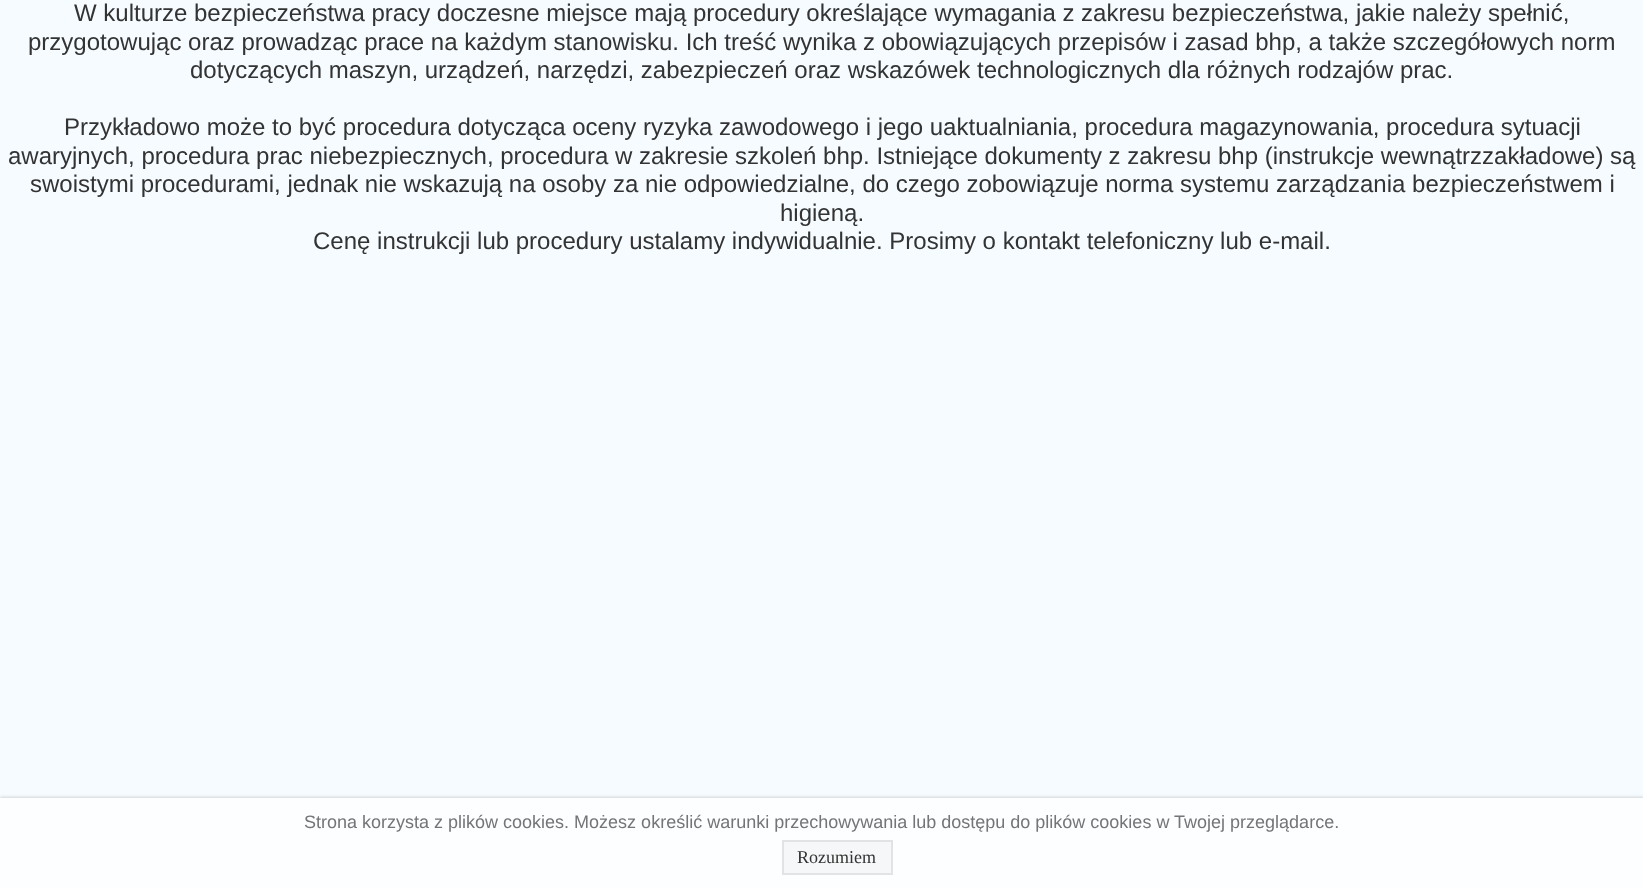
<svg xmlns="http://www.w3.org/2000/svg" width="1643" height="888">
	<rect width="100%" height="100%" fill="#F5FBFF" />
	<g font-family="Liberation Sans" font-size="24" fill="#333333">
		<text x="74" y="21">W kulturze bezpieczeństwa pracy doczesne miejsce mają procedury określające wymagania z zakresu bezpieczeństwa, jakie należy spełnić,</text>
		<text x="28" y="50">przygotowując oraz prowadząc prace na każdym stanowisku. Ich treść wynika z obowiązujących przepisów i zasad bhp, a także szczegółowych norm</text>
		<text x="190" y="78">dotyczących maszyn, urządzeń, narzędzi, zabezpieczeń oraz wskazówek technologicznych dla różnych rodzajów prac.</text>
		<text x="64" y="135">Przykładowo może to być procedura dotycząca oceny ryzyka zawodowego i jego uaktualniania, procedura magazynowania, procedura sytuacji</text>
		<text x="8" y="164">awaryjnych, procedura prac niebezpiecznych, procedura w zakresie szkoleń bhp. Istniejące dokumenty z zakresu bhp (instrukcje wewnątrzzakładowe) są</text>
		<text x="30" y="192">swoistymi procedurami, jednak nie wskazują na osoby za nie odpowiedzialne, do czego zobowiązuje norma systemu zarządzania bezpieczeństwem i</text>
		<text x="780" y="221">higieną.</text>
		<text x="313" y="249">Cenę instrukcji lub procedury ustalamy indywidualnie. Prosimy o kontakt telefoniczny lub e-mail.</text>
	</g>
	<rect x="0" y="797" width="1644" height="90" fill="#D4D5D6" filter="blur(1.5px)" />
	<rect x="0" y="798" width="1643" height="90" fill="#FDFEFF" />
	<text x="304" y="828" font-family="Liberation Sans" font-size="18" fill="#747576">Strona korzysta z plików cookies. Możesz określić warunki przechowywania lub dostępu do plików cookies w Twojej przeglądarce.</text>
	<rect x="783" y="841" width="109" height="33" fill="#F6F7F8" stroke="#E2E3E4" stroke-width="2" />
	<text x="797" y="863" font-family="Liberation Serif" font-size="18" fill="#333333">Rozumiem</text>
</svg>
